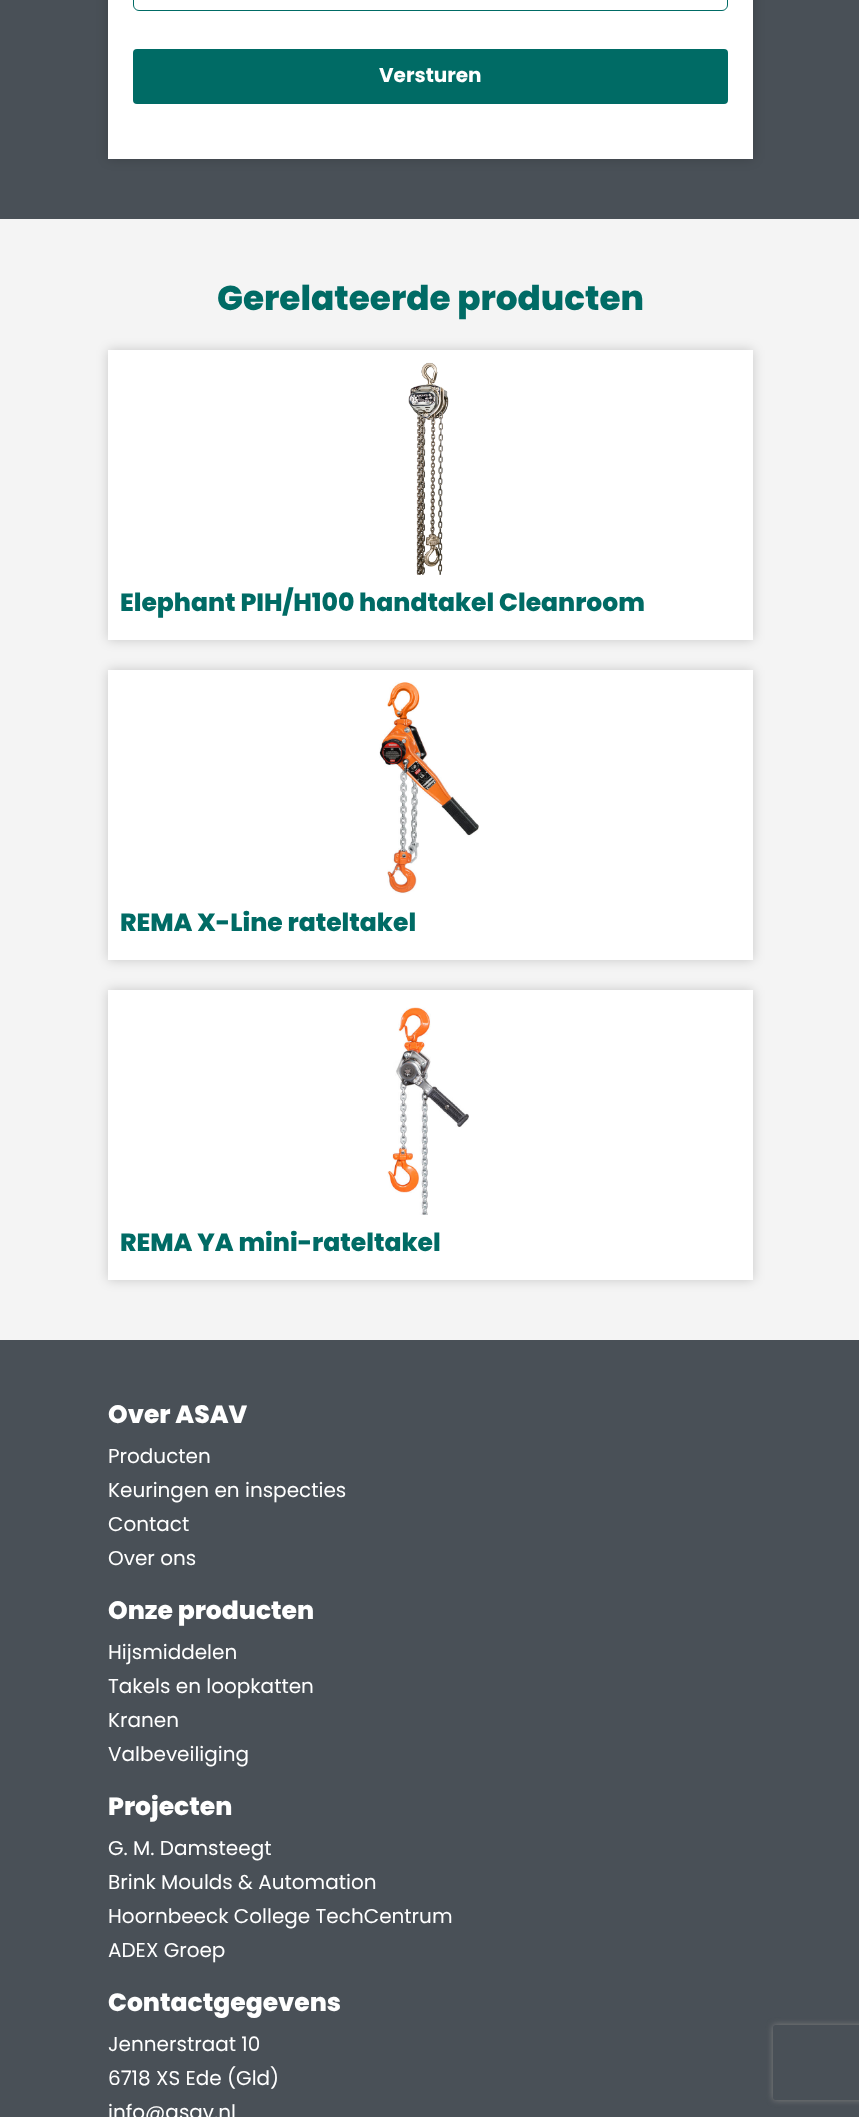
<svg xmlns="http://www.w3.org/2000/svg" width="859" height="2117">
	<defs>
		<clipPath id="clip1"><path d="M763 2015H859V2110H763ZM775.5 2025H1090.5C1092 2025 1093 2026 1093 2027.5V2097.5C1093 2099 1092 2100 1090.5 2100H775.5C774 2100 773 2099 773 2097.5V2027.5C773 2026 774 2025 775.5 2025Z" clip-rule="evenodd" /></clipPath>
	</defs>
	<rect width="100%" height="100%" fill="#495057" />
	<rect x="108" y="-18" width="645" height="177" fill="#000000" fill-opacity="0.18" filter="blur(6px)" />
	<rect x="108" y="0" width="645" height="159" fill="#FFFFFF" />
	<rect x="133.5" y="-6.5" width="594" height="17" rx="5.5" fill="none" stroke="#006B65" />
	<rect x="133" y="49" width="595" height="55" rx="4" fill="#006B65" />
	<text x="379" y="82" font-family="Poppins" font-size="20" font-weight="700" fill="#FFFFFF">Versturen</text>
	<rect x="0" y="219" width="859" height="1121" fill="#F4F4F4" />
	<text x="217" y="310" font-family="Poppins" font-size="34.25" font-weight="800" fill="#006B65">Gerelateerde producten</text>
	<rect x="108" y="350" width="645" height="290" fill="#000000" fill-opacity="0.18" filter="blur(6px)" />
	<rect x="108" y="350" width="645" height="290" fill="#FFFFFF" />
	<image x="408" y="362" width="41" height="213" href="assets/img1.png" />
	<text x="120" y="611" font-family="Poppins" font-size="25" font-weight="800" fill="#006B65">Elephant PIH/H100 handtakel Cleanroom</text>
	<rect x="108" y="670" width="645" height="290" fill="#000000" fill-opacity="0.18" filter="blur(6px)" />
	<rect x="108" y="670" width="645" height="290" fill="#FFFFFF" />
	<image x="379" y="682" width="100" height="212" href="assets/img2.png" />
	<text x="120" y="931" font-family="Poppins" font-size="25" font-weight="800" fill="#006B65">REMA X-Line rateltakel</text>
	<rect x="108" y="990" width="645" height="290" fill="#000000" fill-opacity="0.18" filter="blur(6px)" />
	<rect x="108" y="990" width="645" height="290" fill="#FFFFFF" />
	<image x="387" y="1007" width="82" height="208" href="assets/img3.png" />
	<text x="120" y="1251" font-family="Poppins" font-size="25" font-weight="800" fill="#006B65">REMA YA mini-rateltakel</text>
	<text x="108" y="1423" font-family="Poppins" font-size="25" font-weight="800" fill="#FFFFFF">Over ASAV</text>
	<g font-family="Poppins" font-size="20" fill="#FFFFFF">
		<text x="108" y="1463">Producten</text>
		<text x="108" y="1497">Keuringen en inspecties</text>
		<text x="108" y="1531">Contact</text>
		<text x="108" y="1565">Over ons</text>
	</g>
	<text x="108" y="1619" font-family="Poppins" font-size="25" font-weight="800" fill="#FFFFFF">Onze producten</text>
	<g font-family="Poppins" font-size="20" fill="#FFFFFF">
		<text x="108" y="1659">Hijsmiddelen</text>
		<text x="108" y="1693">Takels en loopkatten</text>
		<text x="108" y="1727">Kranen</text>
		<text x="108" y="1761">Valbeveiliging</text>
	</g>
	<text x="108" y="1815" font-family="Poppins" font-size="25" font-weight="800" fill="#FFFFFF">Projecten</text>
	<g font-family="Poppins" font-size="20" fill="#FFFFFF">
		<text x="108" y="1855">G. M. Damsteegt</text>
		<text x="108" y="1889">Brink Moulds &amp; Automation</text>
		<text x="108" y="1923">Hoornbeeck College TechCentrum</text>
		<text x="108" y="1957">ADEX Groep</text>
	</g>
	<text x="108" y="2011" font-family="Poppins" font-size="25" font-weight="800" fill="#FFFFFF">Contactgegevens</text>
	<g font-family="Poppins" font-size="20" fill="#FFFFFF">
		<text x="108" y="2051">Jennerstraat 10</text>
		<text x="108" y="2085">6718 XS Ede (Gld)</text>
		<text x="108" y="2119">info@asav.nl</text>
	</g>
	<g clip-path="url(#clip1)">
		<rect x="773" y="2025" width="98" height="75" rx="2.5" fill="#808080" filter="blur(3px)" />
	</g>
</svg>
